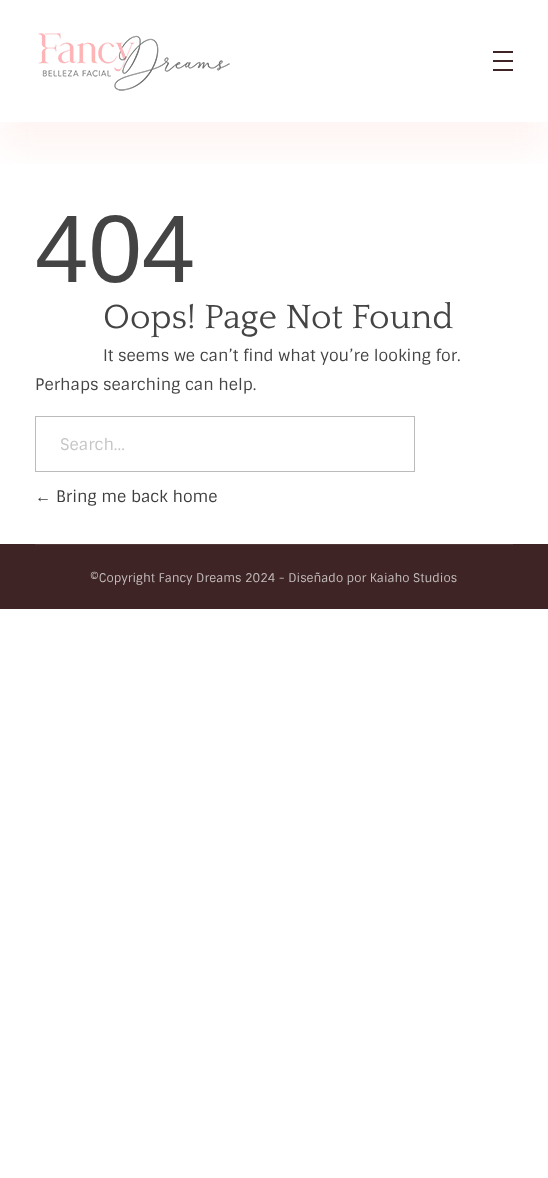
<svg xmlns="http://www.w3.org/2000/svg" width="548" height="1178">
	<defs>
		<clipPath id="clip1"><rect x="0" y="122" width="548" height="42" /></clipPath>
	</defs>
	<rect width="100%" height="100%" fill="#FFFFFF" />
	<g clip-path="url(#clip1)">
		<rect x="0" y="30" width="548" height="122" fill="#F38576" fill-opacity="0.08" filter="blur(18px)" />
	</g>
	<image x="38" y="33" width="192" height="58" href="assets/img1.png" />
	<rect x="493" y="51" width="20" height="2" fill="#3E2424" />
	<rect x="493" y="60" width="20" height="2" fill="#3E2424" />
	<rect x="493" y="69" width="20" height="2" fill="#3E2424" />
	<text x="35" y="282" font-family="Liberation Sans" font-size="96" fill="#444444">404</text>
	<text x="103" y="328" font-family="Quattrocento" font-size="35.25" fill="#444444">Oops! Page Not Found</text>
	<g font-family="Sintony" font-size="16" fill="#444444">
		<text x="103" y="361">It seems we can’t find what you’re looking for.</text>
		<text x="35" y="390">Perhaps searching can help.</text>
	</g>
	<rect x="35.5" y="416.5" width="379" height="55" fill="none" stroke="#BBBBBB" />
	<text x="60" y="450" font-family="Sintony" font-size="16" fill="#C5C5C5">Search...</text>
	<text x="35" y="502" font-family="Liberation Sans" font-size="16" fill="#3D3D3D">←</text>
	<text x="56" y="502" font-family="Sintony" font-size="16" fill="#3D3D3D">Bring me back home</text>
	<rect x="0" y="544" width="548" height="65" fill="#3E2424" />
	<rect x="35" y="544" width="478" height="1" fill="#513838" />
	<text x="90" y="582" font-family="Sintony" font-size="12" fill="#C5BDBD">©Copyright Fancy Dreams 2024 - Diseñado por Kaiaho Studios</text>
</svg>
